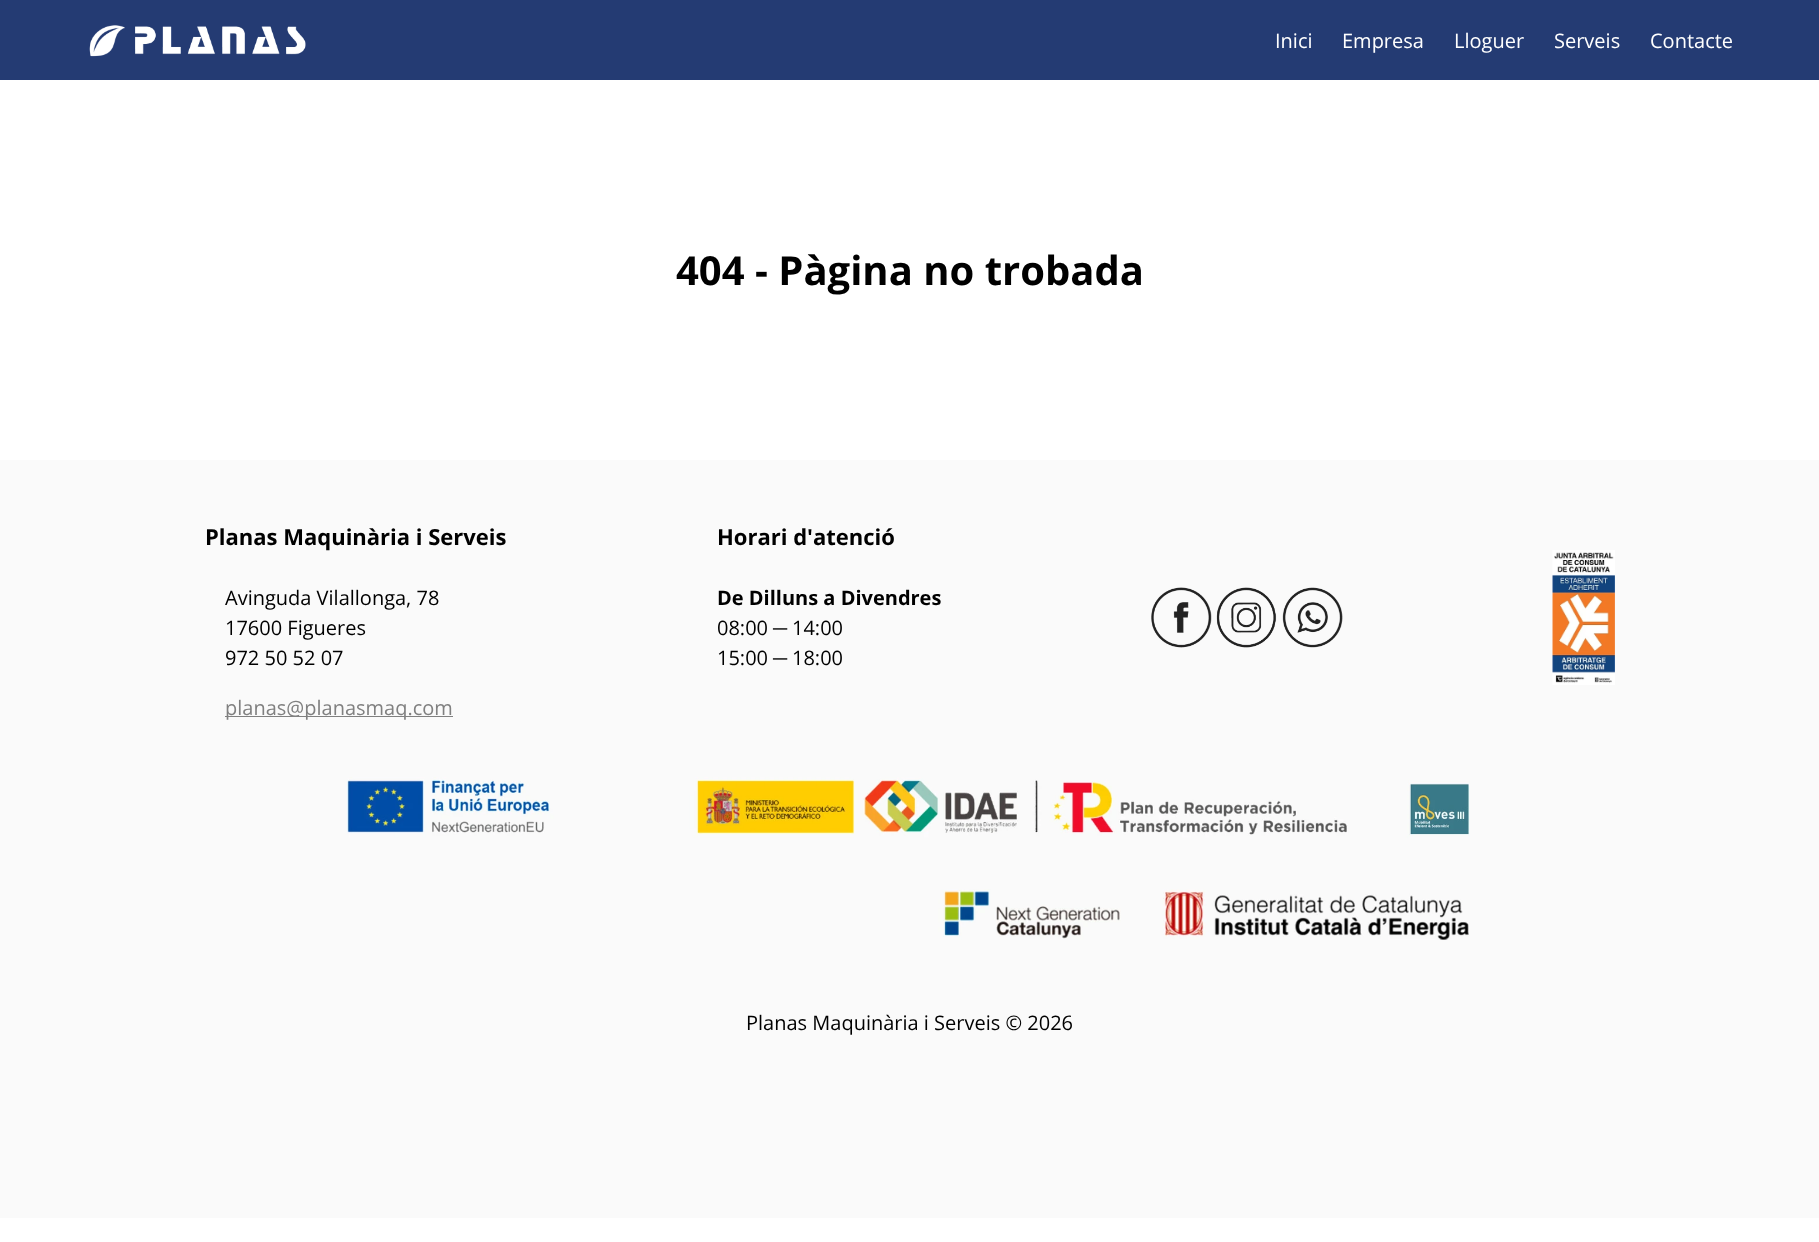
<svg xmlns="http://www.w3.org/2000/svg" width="1819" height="1242">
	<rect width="100%" height="100%" fill="#FFFFFF" />
	<rect x="0" y="0" width="1819" height="80" fill="#243B73" />
	<image x="89" y="25" width="217" height="32" href="assets/img1.png" />
	<g font-family="Open Sans" font-size="20" fill="#FFFFFF">
		<text x="1275" y="48">Inici</text>
		<text x="1342" y="48">Empresa</text>
		<text x="1454" y="48">Lloguer</text>
		<text x="1554" y="48">Serveis</text>
		<text x="1650" y="48">Contacte</text>
	</g>
	<text x="676" y="285" font-family="Open Sans" font-size="40" font-weight="700" fill="#000000">404 - Pàgina no trobada</text>
	<rect x="0" y="460" width="1819" height="758" fill="#FAFAFA" />
	<text x="205" y="545" font-family="Open Sans" font-size="22" font-weight="700" fill="#000000">Planas Maquinària i Serveis</text>
	<g font-family="Open Sans" font-size="20" fill="#000000">
		<text x="225" y="605">Avinguda Vilallonga, 78</text>
		<text x="225" y="635">17600 Figueres</text>
		<text x="225" y="665">972 50 52 07</text>
	</g>
	<rect x="225" y="716" width="228" height="1" fill="#808080" />
	<text x="225" y="715" font-family="Open Sans" font-size="20" fill="#808080">planas@planasmaq.com</text>
	<text x="717" y="545" font-family="Open Sans" font-size="22" font-weight="700" fill="#000000">Horari d'atenció</text>
	<text x="717" y="605" font-family="Open Sans" font-size="20" font-weight="700" fill="#000000">De Dilluns a Divendres</text>
	<text x="717" y="635" font-family="Open Sans" font-size="20" fill="#000000">08:00</text>
	<text x="773" y="635" font-family="Liberation Sans" font-size="20" fill="#000000">─</text>
	<g font-family="Open Sans" font-size="20" fill="#000000">
		<text x="792" y="635">14:00</text>
		<text x="717" y="665">15:00</text>
	</g>
	<text x="773" y="665" font-family="Liberation Sans" font-size="20" fill="#000000">─</text>
	<text x="792" y="665" font-family="Open Sans" font-size="20" fill="#000000">18:00</text>
	<image x="1151" y="587" width="61" height="61" href="assets/img2.png" />
	<image x="1216" y="587" width="61" height="61" href="assets/img3.png" />
	<image x="1282" y="587" width="61" height="61" href="assets/img4.png" />
	<image x="1552" y="550" width="63" height="135" href="assets/img5.png" />
	<image x="347" y="777" width="1123" height="163" href="assets/img6.png" />
	<text x="746" y="1030" font-family="Open Sans" font-size="20" fill="#000000">Planas Maquinària i Serveis © 2026</text>
</svg>
